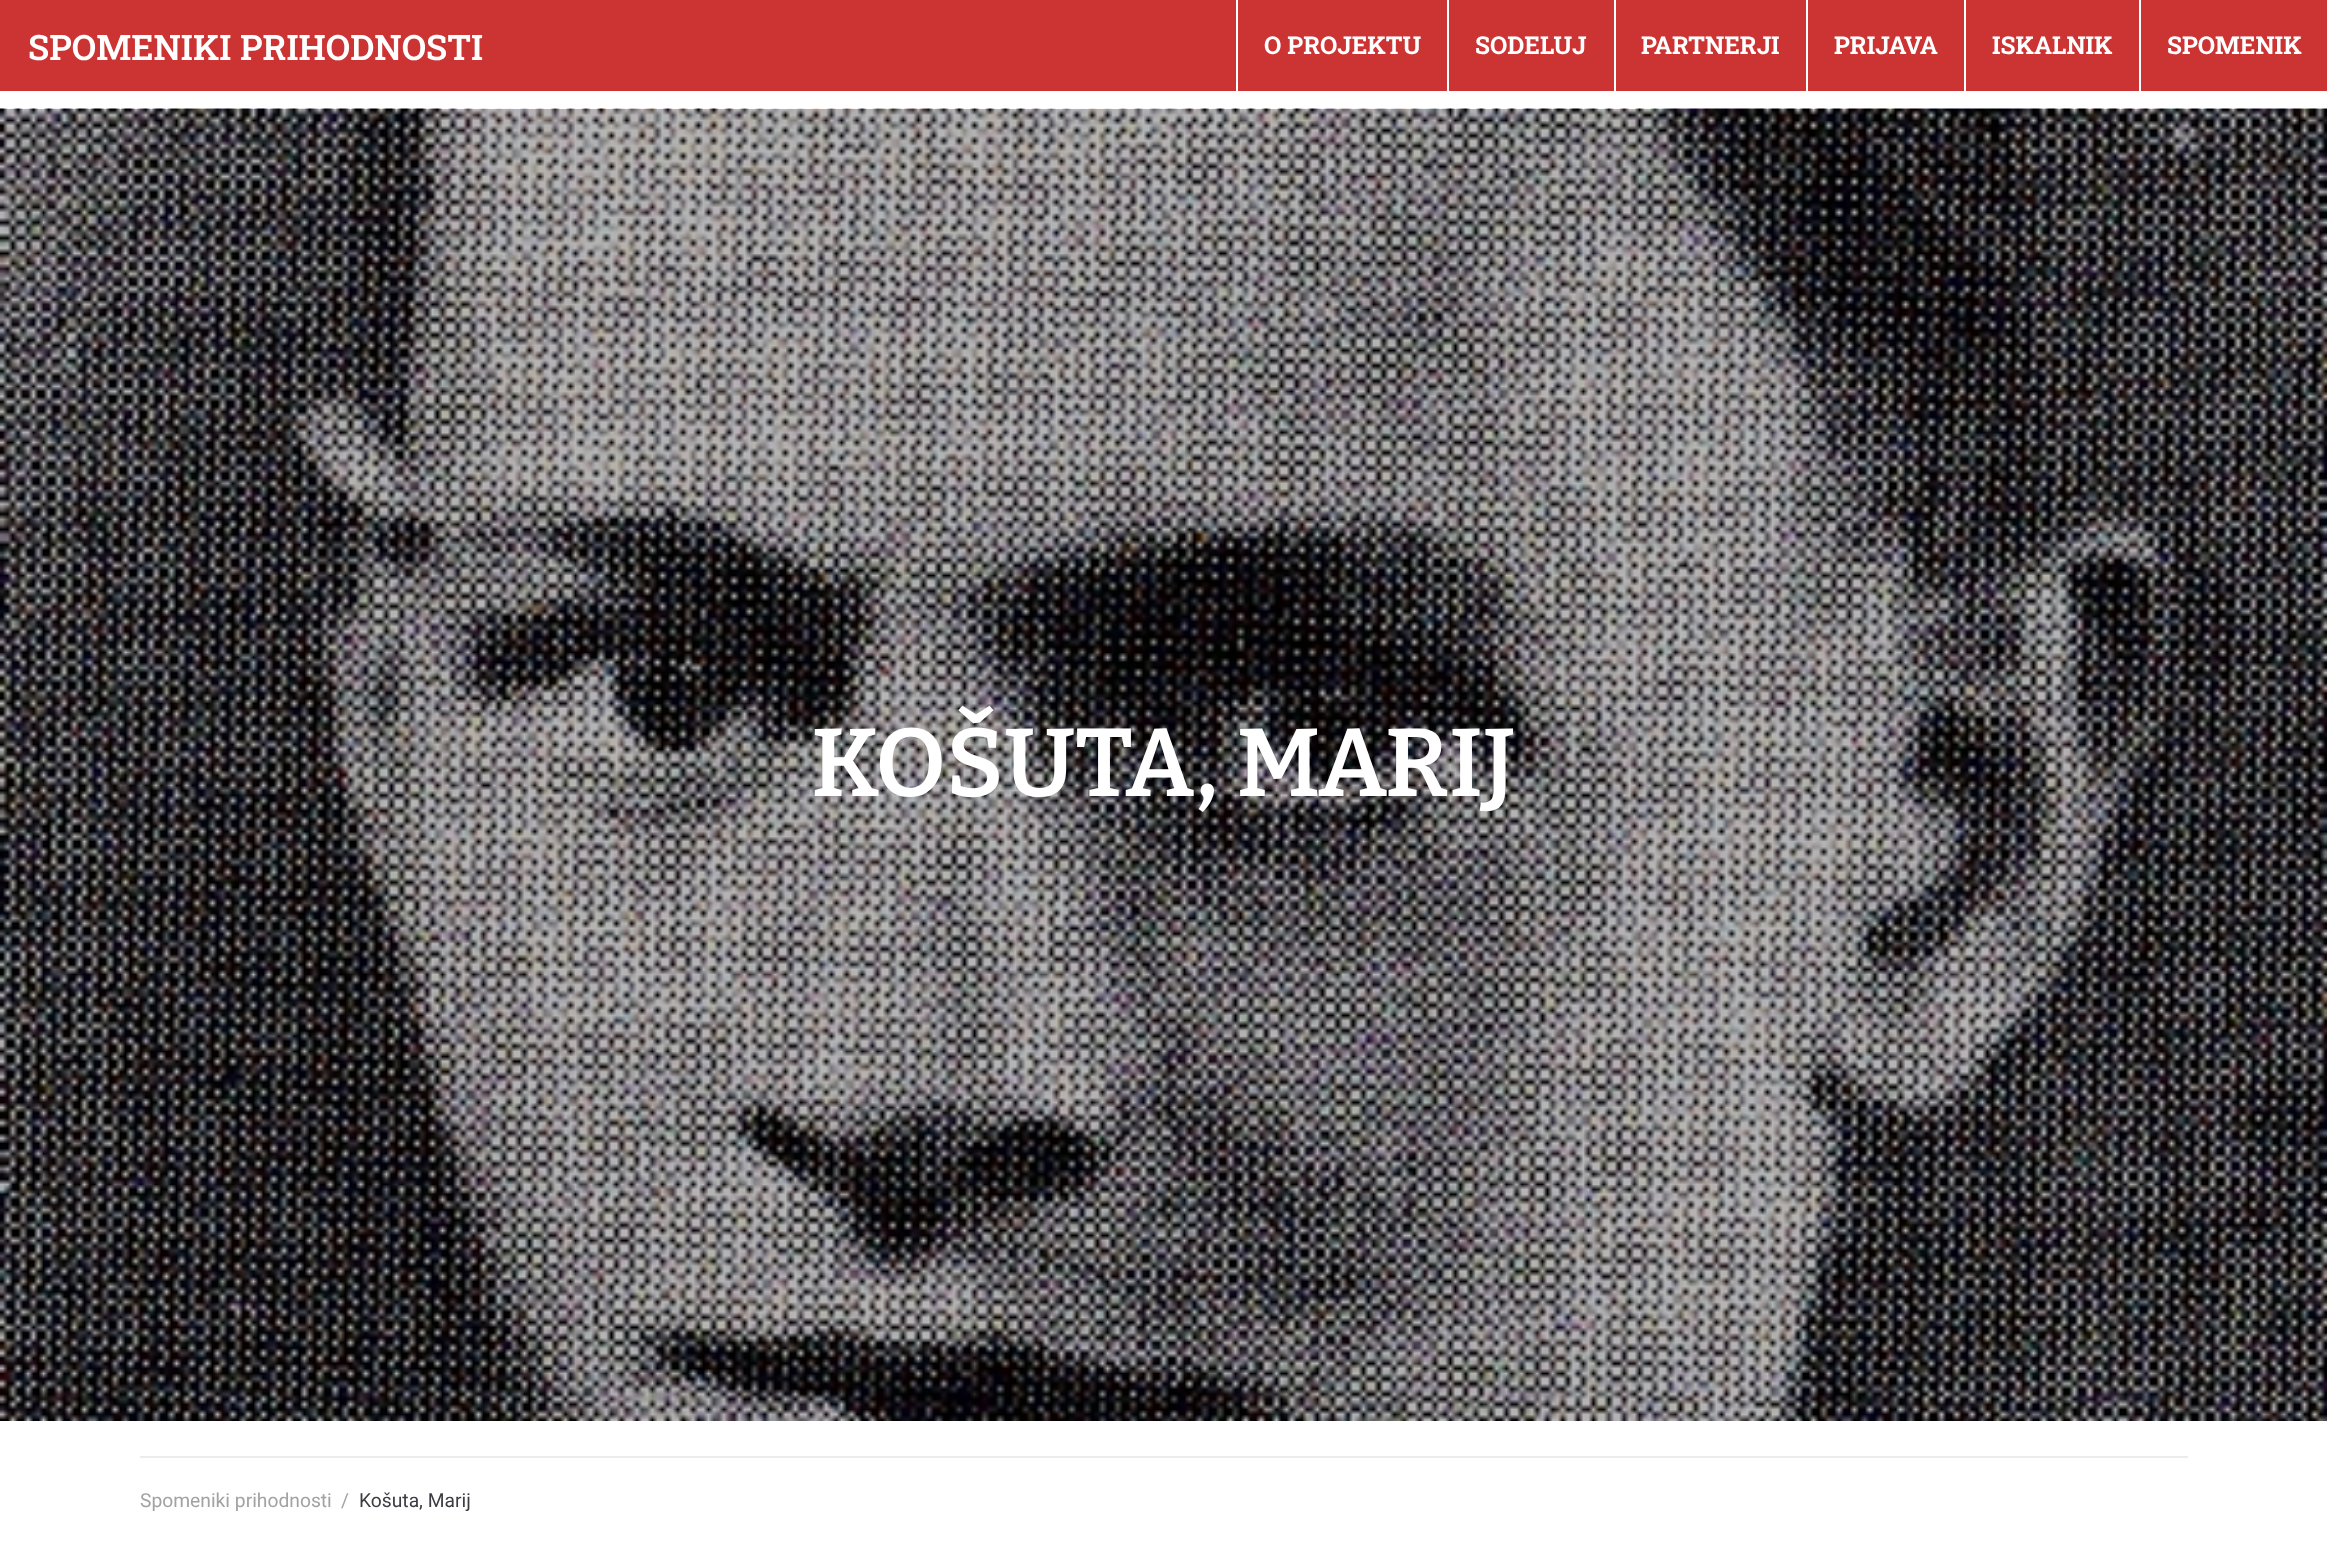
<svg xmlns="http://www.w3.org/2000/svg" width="2327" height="1547">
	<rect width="100%" height="100%" fill="#FFFFFF" />
	<rect x="0" y="0" width="2327" height="91" fill="#CC3333" />
	<text x="28" y="60" font-family="Roboto Slab" font-size="35" font-weight="600" fill="#FFFFFF">SPOMENIKI PRIHODNOSTI</text>
	<rect x="1236" y="0" width="2" height="91" fill="#FFFFFF" />
	<text x="1264" y="54" font-family="Roboto Slab" font-size="24.5" font-weight="700" fill="#FFFFFF">O PROJEKTU</text>
	<rect x="1447" y="0" width="2" height="91" fill="#FFFFFF" />
	<text x="1475" y="54" font-family="Roboto Slab" font-size="24.5" font-weight="700" fill="#FFFFFF">SODELUJ</text>
	<rect x="1614" y="0" width="2" height="91" fill="#FFFFFF" />
	<text x="1641" y="54" font-family="Roboto Slab" font-size="24.5" font-weight="700" fill="#FFFFFF">PARTNERJI</text>
	<rect x="1806" y="0" width="2" height="91" fill="#FFFFFF" />
	<text x="1834" y="54" font-family="Roboto Slab" font-size="24.5" font-weight="700" fill="#FFFFFF">PRIJAVA</text>
	<rect x="1964" y="0" width="2" height="91" fill="#FFFFFF" />
	<text x="1992" y="54" font-family="Roboto Slab" font-size="24.5" font-weight="700" fill="#FFFFFF">ISKALNIK</text>
	<rect x="2139" y="0" width="2" height="91" fill="#FFFFFF" />
	<text x="2167" y="54" font-family="Roboto Slab" font-size="24.5" font-weight="700" fill="#FFFFFF">SPOMENIK</text>
	<image x="0" y="108" width="2327" height="1313" href="assets/img1.png" />
	<text x="811" y="796" font-family="Bitter" font-size="96.25" font-weight="600" fill="#FFFFFF">KOŠUTA, MARIJ</text>
	<rect x="140" y="1456" width="2048" height="2" fill="#EBECED" />
	<g font-family="Roboto" font-size="19.25" fill="#A1A2A4">
		<text x="140" y="1507">Spomeniki prihodnosti</text>
		<text x="341" y="1507">/</text>
	</g>
	<text x="359" y="1507" font-family="Roboto" font-size="19.25" fill="#3B3D42">Košuta, Marij</text>
</svg>
